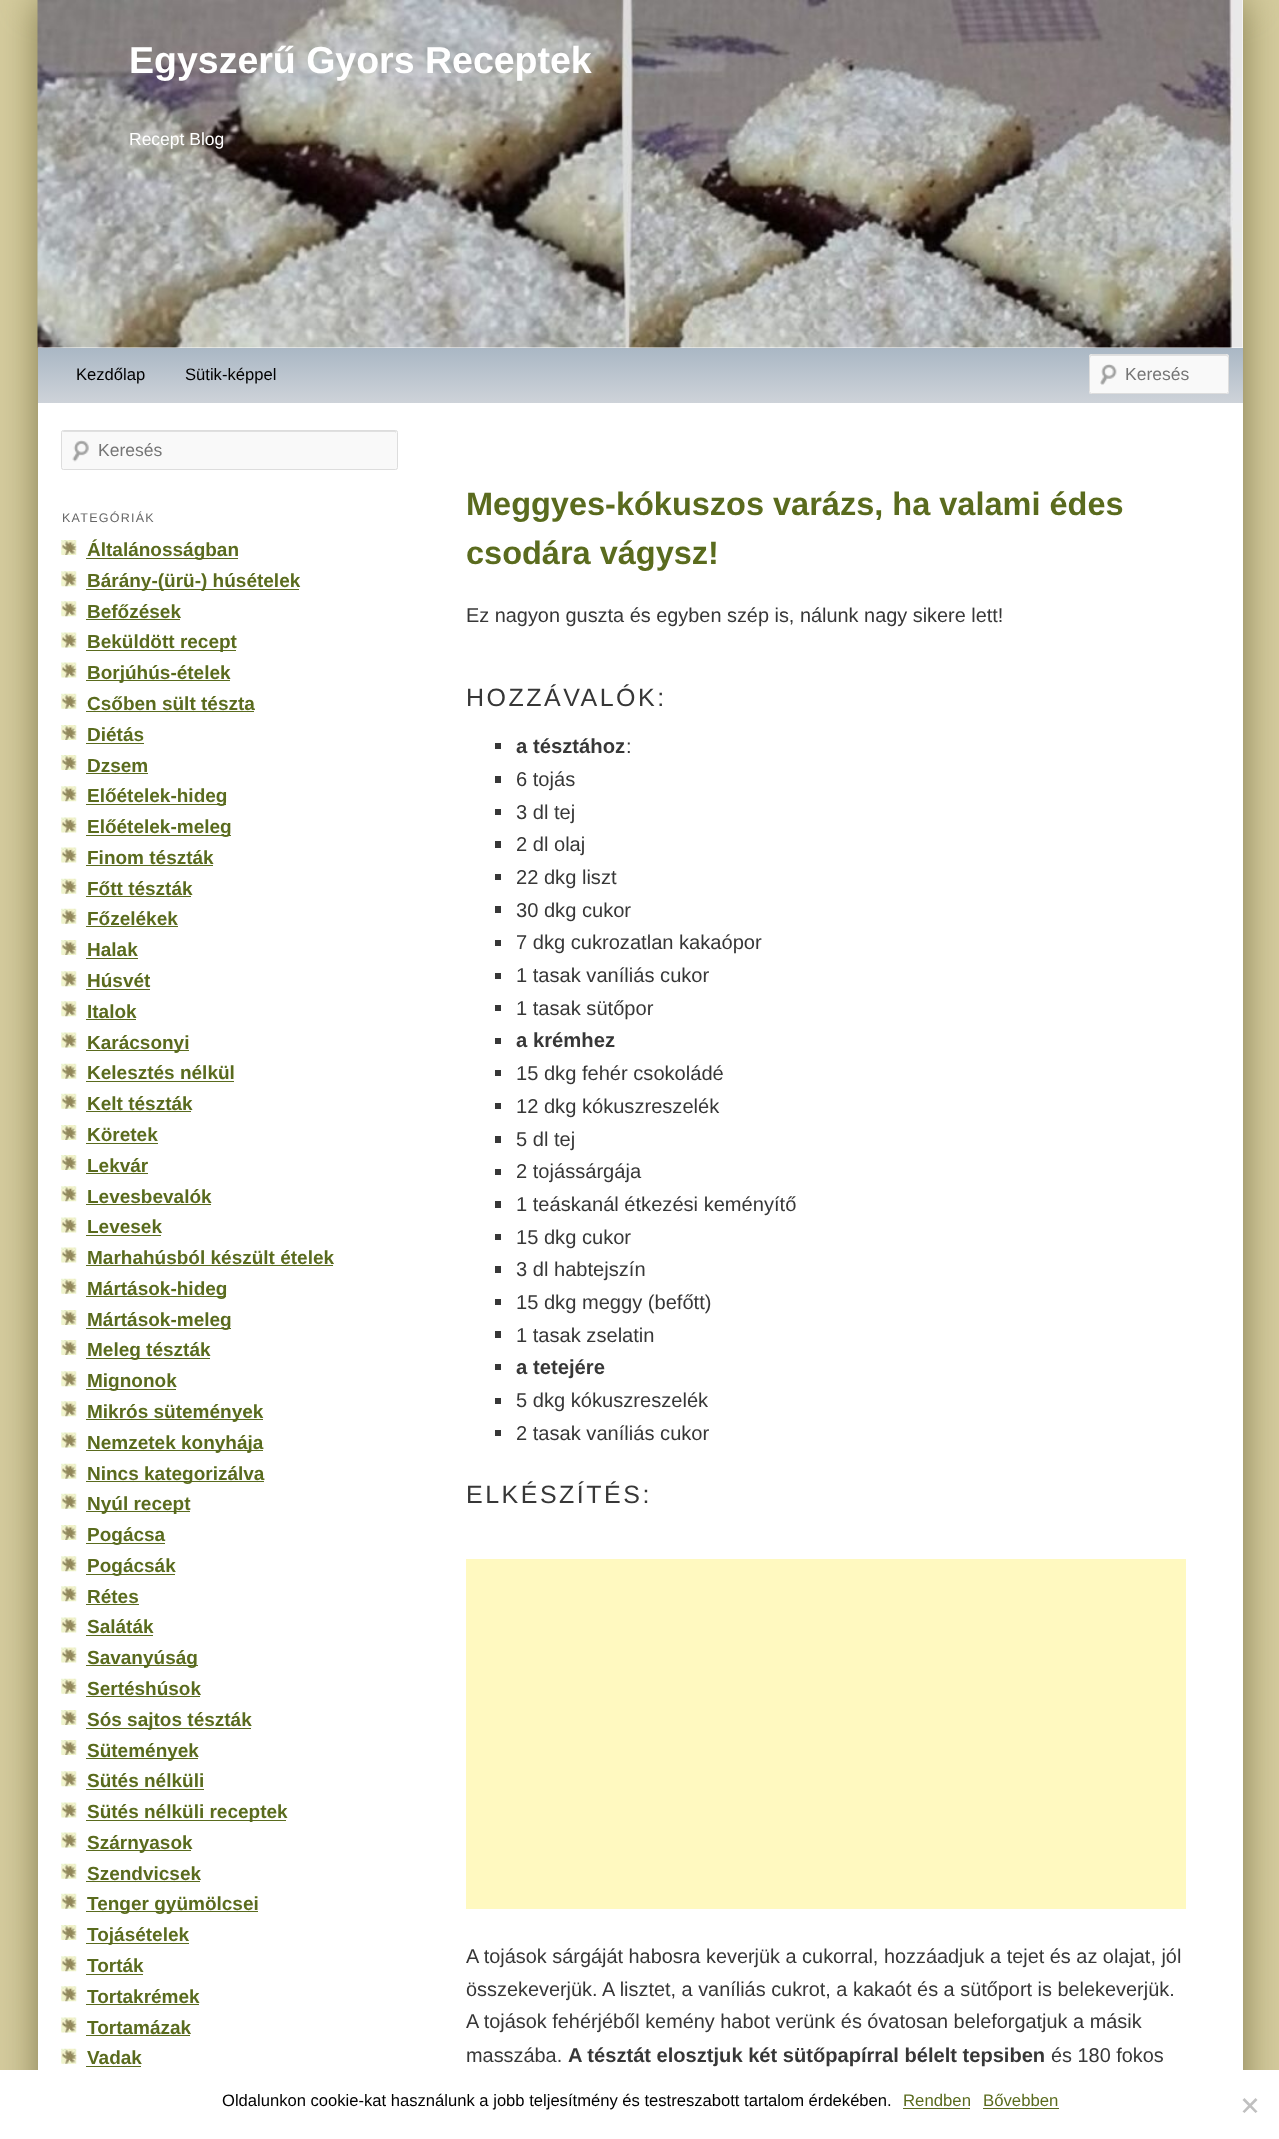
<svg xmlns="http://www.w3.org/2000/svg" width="1279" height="2139">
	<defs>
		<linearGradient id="g1" gradientUnits="userSpaceOnUse" x1="640" y1="347" x2="640" y2="403"><stop offset="0" stop-color="#A9B7C4" /><stop offset="1" stop-color="#CED3D9" /></linearGradient>
	</defs>
	<rect width="100%" height="100%" fill="#D4CB9D" />
	<rect x="38" y="0" width="1205" height="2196" fill="#81794B" filter="blur(19px)" />
	<rect x="38" y="0" width="1205" height="2070" fill="#FFFFFF" />
	<image x="37" y="0" width="1206" height="348" href="assets/img1.png" />
	<text x="129" y="73" font-family="Liberation Sans" font-size="37.5" font-weight="700" fill="#FFFFFF">Egyszerű Gyors Receptek</text>
	<text x="129" y="145" font-family="Liberation Sans" font-size="17.5" fill="#FFFFFF">Recept Blog</text>
	<rect x="38" y="348" width="1205" height="55" fill="url(#g1)" />
	<g font-family="Liberation Sans" font-size="16.6" fill="#000000">
		<text x="76" y="380">Kezdőlap</text>
		<text x="185" y="380">Sütik-képpel</text>
	</g>
	<rect x="1089" y="354" width="140" height="40" rx="2.5" fill="#F9F9F9" />
	<image x="1100" y="364" width="17" height="21" href="assets/img2.png" />
	<path d="M1091 356H1226C1227 356 1228 357 1228 358C1228 357 1228 356 1227 355H1091C1090 355 1090 357 1090 358Z" fill="#E0E0E0" />
	<rect x="1089.5" y="354.5" width="139" height="39" rx="2" fill="none" stroke="#DDDDDD" />
	<text x="1125" y="380" font-family="Liberation Sans" font-size="17.5" fill="#757575">Keresés</text>
	<rect x="61" y="430" width="337" height="40" rx="2.5" fill="#F9F9F9" />
	<image x="72" y="440" width="17" height="22" href="assets/img3.png" />
	<path d="M64 432H395L396 433V434V432C396 431 396 431 395 431H64C63 431 63 431 63 432Z" fill="#E0E0E0" />
	<rect x="61.5" y="430.5" width="336" height="39" rx="2" fill="none" stroke="#DDDDDD" />
	<text x="98" y="456" font-family="Liberation Sans" font-size="17.5" fill="#757575">Keresés</text>
	<text x="62" y="522" font-family="Liberation Sans" font-size="12.5" letter-spacing="1.25" fill="#666666">KATEGÓRIÁK</text>
	<image x="61" y="540" width="16" height="15" href="assets/img4.png" />
	<rect x="86" y="558" width="152" height="1" fill="#5A6B1E" />
	<text x="87" y="556" font-family="Liberation Sans" font-size="19" font-weight="700" fill="#5A6B1E">Általánosságban</text>
	<image x="61" y="571" width="16" height="16" href="assets/img5.png" />
	<rect x="86" y="589" width="213" height="1" fill="#5A6B1E" />
	<text x="87" y="587" font-family="Liberation Sans" font-size="19" font-weight="700" fill="#5A6B1E">Bárány-(ürü-) húsételek</text>
	<image x="61" y="601" width="16" height="16" href="assets/img5.png" />
	<text x="87" y="618" font-family="Liberation Sans" font-size="19" font-weight="700" fill="#5A6B1E">Befőzések</text>
	<rect x="86" y="619" width="94" height="1" fill="#5A6B1E" />
	<image x="61" y="632" width="16" height="16" href="assets/img6.png" />
	<rect x="86" y="650" width="150" height="1" fill="#5A6B1E" />
	<text x="87" y="648" font-family="Liberation Sans" font-size="19" font-weight="700" fill="#5A6B1E">Beküldött recept</text>
	<image x="61" y="662" width="16" height="16" href="assets/img6.png" />
	<rect x="86" y="680" width="144" height="1" fill="#5A6B1E" />
	<text x="87" y="679" font-family="Liberation Sans" font-size="19" font-weight="700" fill="#5A6B1E">Borjúhús-ételek</text>
	<image x="61" y="693" width="16" height="16" href="assets/img7.png" />
	<text x="87" y="710" font-family="Liberation Sans" font-size="19" font-weight="700" fill="#5A6B1E">Csőben sült tészta</text>
	<rect x="86" y="711" width="168" height="1" fill="#5A6B1E" />
	<image x="61" y="725" width="16" height="15" href="assets/img4.png" />
	<text x="87" y="741" font-family="Liberation Sans" font-size="19" font-weight="700" fill="#5A6B1E">Diétás</text>
	<rect x="86" y="743" width="58" height="1" fill="#5A6B1E" />
	<image x="61" y="755" width="16" height="15" href="assets/img4.png" />
	<text x="87" y="772" font-family="Liberation Sans" font-size="19" font-weight="700" fill="#5A6B1E">Dzsem</text>
	<rect x="86" y="773" width="62" height="1" fill="#5A6B1E" />
	<image x="61" y="786" width="16" height="16" href="assets/img5.png" />
	<rect x="86" y="804" width="140" height="1" fill="#5A6B1E" />
	<text x="87" y="802" font-family="Liberation Sans" font-size="19" font-weight="700" fill="#5A6B1E">Előételek-hideg</text>
	<image x="61" y="817" width="16" height="16" href="assets/img6.png" />
	<rect x="86" y="835" width="145" height="1" fill="#5A6B1E" />
	<text x="87" y="833" font-family="Liberation Sans" font-size="19" font-weight="700" fill="#5A6B1E">Előételek-meleg</text>
	<image x="61" y="847" width="16" height="16" href="assets/img6.png" />
	<text x="87" y="864" font-family="Liberation Sans" font-size="19" font-weight="700" fill="#5A6B1E">Finom tészták</text>
	<rect x="86" y="865" width="127" height="1" fill="#5A6B1E" />
	<image x="61" y="878" width="16" height="16" href="assets/img7.png" />
	<text x="87" y="895" font-family="Liberation Sans" font-size="19" font-weight="700" fill="#5A6B1E">Főtt tészták</text>
	<rect x="86" y="896" width="105" height="1" fill="#5A6B1E" />
	<image x="61" y="908" width="16" height="16" href="assets/img7.png" />
	<text x="87" y="925" font-family="Liberation Sans" font-size="19" font-weight="700" fill="#5A6B1E">Főzelékek</text>
	<rect x="86" y="926" width="92" height="1" fill="#5A6B1E" />
	<image x="61" y="940" width="16" height="15" href="assets/img4.png" />
	<text x="87" y="956" font-family="Liberation Sans" font-size="19" font-weight="700" fill="#5A6B1E">Halak</text>
	<rect x="86" y="958" width="52" height="1" fill="#5A6B1E" />
	<image x="61" y="971" width="16" height="16" href="assets/img5.png" />
	<text x="87" y="987" font-family="Liberation Sans" font-size="19" font-weight="700" fill="#5A6B1E">Húsvét</text>
	<rect x="86" y="989" width="64" height="1" fill="#5A6B1E" />
	<image x="61" y="1001" width="16" height="16" href="assets/img5.png" />
	<text x="87" y="1018" font-family="Liberation Sans" font-size="19" font-weight="700" fill="#5A6B1E">Italok</text>
	<rect x="86" y="1019" width="50" height="1" fill="#5A6B1E" />
	<image x="61" y="1032" width="16" height="16" href="assets/img6.png" />
	<rect x="86" y="1050" width="103" height="1" fill="#5A6B1E" />
	<text x="87" y="1049" font-family="Liberation Sans" font-size="19" font-weight="700" fill="#5A6B1E">Karácsonyi</text>
	<image x="61" y="1063" width="16" height="16" href="assets/img7.png" />
	<text x="87" y="1079" font-family="Liberation Sans" font-size="19" font-weight="700" fill="#5A6B1E">Kelesztés nélkül</text>
	<rect x="86" y="1081" width="148" height="1" fill="#5A6B1E" />
	<image x="61" y="1093" width="16" height="16" href="assets/img7.png" />
	<text x="87" y="1110" font-family="Liberation Sans" font-size="19" font-weight="700" fill="#5A6B1E">Kelt tészták</text>
	<rect x="86" y="1111" width="105" height="1" fill="#5A6B1E" />
	<image x="61" y="1125" width="16" height="15" href="assets/img4.png" />
	<text x="87" y="1141" font-family="Liberation Sans" font-size="19" font-weight="700" fill="#5A6B1E">Köretek</text>
	<rect x="86" y="1143" width="72" height="1" fill="#5A6B1E" />
	<image x="61" y="1155" width="16" height="15" href="assets/img4.png" />
	<text x="87" y="1172" font-family="Liberation Sans" font-size="19" font-weight="700" fill="#5A6B1E">Lekvár</text>
	<rect x="86" y="1173" width="62" height="1" fill="#5A6B1E" />
	<image x="61" y="1186" width="16" height="16" href="assets/img5.png" />
	<text x="87" y="1203" font-family="Liberation Sans" font-size="19" font-weight="700" fill="#5A6B1E">Levesbevalók</text>
	<rect x="86" y="1204" width="125" height="1" fill="#5A6B1E" />
	<image x="61" y="1217" width="16" height="16" href="assets/img6.png" />
	<text x="87" y="1233" font-family="Liberation Sans" font-size="19" font-weight="700" fill="#5A6B1E">Levesek</text>
	<rect x="86" y="1235" width="75" height="1" fill="#5A6B1E" />
	<image x="61" y="1247" width="16" height="16" href="assets/img6.png" />
	<text x="87" y="1264" font-family="Liberation Sans" font-size="19" font-weight="700" fill="#5A6B1E">Marhahúsból készült ételek</text>
	<rect x="86" y="1265" width="247" height="1" fill="#5A6B1E" />
	<image x="61" y="1278" width="16" height="16" href="assets/img7.png" />
	<rect x="86" y="1296" width="140" height="1" fill="#5A6B1E" />
	<text x="87" y="1295" font-family="Liberation Sans" font-size="19" font-weight="700" fill="#5A6B1E">Mártások-hideg</text>
	<image x="61" y="1310" width="16" height="15" href="assets/img4.png" />
	<rect x="86" y="1328" width="145" height="1" fill="#5A6B1E" />
	<text x="87" y="1326" font-family="Liberation Sans" font-size="19" font-weight="700" fill="#5A6B1E">Mártások-meleg</text>
	<image x="61" y="1340" width="16" height="15" href="assets/img4.png" />
	<rect x="86" y="1358" width="124" height="1" fill="#5A6B1E" />
	<text x="87" y="1356" font-family="Liberation Sans" font-size="19" font-weight="700" fill="#5A6B1E">Meleg tészták</text>
	<image x="61" y="1371" width="16" height="16" href="assets/img5.png" />
	<rect x="86" y="1389" width="90" height="1" fill="#5A6B1E" />
	<text x="87" y="1387" font-family="Liberation Sans" font-size="19" font-weight="700" fill="#5A6B1E">Mignonok</text>
	<image x="61" y="1401" width="16" height="16" href="assets/img5.png" />
	<rect x="86" y="1419" width="177" height="1" fill="#5A6B1E" />
	<text x="87" y="1418" font-family="Liberation Sans" font-size="19" font-weight="700" fill="#5A6B1E">Mikrós sütemények</text>
	<image x="61" y="1432" width="16" height="16" href="assets/img6.png" />
	<rect x="86" y="1450" width="177" height="1" fill="#5A6B1E" />
	<text x="87" y="1449" font-family="Liberation Sans" font-size="19" font-weight="700" fill="#5A6B1E">Nemzetek konyhája</text>
	<image x="61" y="1463" width="16" height="16" href="assets/img7.png" />
	<rect x="86" y="1481" width="178" height="1" fill="#5A6B1E" />
	<text x="87" y="1480" font-family="Liberation Sans" font-size="19" font-weight="700" fill="#5A6B1E">Nincs kategorizálva</text>
	<image x="61" y="1493" width="16" height="16" href="assets/img7.png" />
	<rect x="86" y="1511" width="104" height="1" fill="#5A6B1E" />
	<text x="87" y="1510" font-family="Liberation Sans" font-size="19" font-weight="700" fill="#5A6B1E">Nyúl recept</text>
	<image x="61" y="1525" width="16" height="15" href="assets/img4.png" />
	<rect x="86" y="1543" width="79" height="1" fill="#5A6B1E" />
	<text x="87" y="1541" font-family="Liberation Sans" font-size="19" font-weight="700" fill="#5A6B1E">Pogácsa</text>
	<image x="61" y="1556" width="16" height="16" href="assets/img8.png" />
	<rect x="86" y="1574" width="89" height="1" fill="#5A6B1E" />
	<text x="87" y="1572" font-family="Liberation Sans" font-size="19" font-weight="700" fill="#5A6B1E">Pogácsák</text>
	<image x="61" y="1586" width="16" height="16" href="assets/img5.png" />
	<text x="87" y="1603" font-family="Liberation Sans" font-size="19" font-weight="700" fill="#5A6B1E">Rétes</text>
	<rect x="86" y="1604" width="53" height="1" fill="#5A6B1E" />
	<image x="61" y="1617" width="16" height="16" href="assets/img6.png" />
	<text x="87" y="1633" font-family="Liberation Sans" font-size="19" font-weight="700" fill="#5A6B1E">Saláták</text>
	<rect x="86" y="1635" width="67" height="1" fill="#5A6B1E" />
	<image x="61" y="1647" width="16" height="16" href="assets/img6.png" />
	<rect x="86" y="1665" width="112" height="1" fill="#5A6B1E" />
	<text x="87" y="1664" font-family="Liberation Sans" font-size="19" font-weight="700" fill="#5A6B1E">Savanyúság</text>
	<image x="61" y="1678" width="16" height="16" href="assets/img7.png" />
	<text x="87" y="1695" font-family="Liberation Sans" font-size="19" font-weight="700" fill="#5A6B1E">Sertéshúsok</text>
	<rect x="86" y="1696" width="114" height="1" fill="#5A6B1E" />
	<image x="61" y="1710" width="16" height="15" href="assets/img4.png" />
	<rect x="86" y="1728" width="165" height="1" fill="#5A6B1E" />
	<text x="87" y="1726" font-family="Liberation Sans" font-size="19" font-weight="700" fill="#5A6B1E">Sós sajtos tészták</text>
	<image x="61" y="1740" width="16" height="15" href="assets/img4.png" />
	<rect x="86" y="1758" width="112" height="1" fill="#5A6B1E" />
	<text x="87" y="1757" font-family="Liberation Sans" font-size="19" font-weight="700" fill="#5A6B1E">Sütemények</text>
	<image x="61" y="1771" width="16" height="16" href="assets/img5.png" />
	<text x="87" y="1787" font-family="Liberation Sans" font-size="19" font-weight="700" fill="#5A6B1E">Sütés nélküli</text>
	<rect x="86" y="1789" width="118" height="1" fill="#5A6B1E" />
	<image x="61" y="1802" width="16" height="16" href="assets/img6.png" />
	<rect x="86" y="1820" width="200" height="1" fill="#5A6B1E" />
	<text x="87" y="1818" font-family="Liberation Sans" font-size="19" font-weight="700" fill="#5A6B1E">Sütés nélküli receptek</text>
	<image x="61" y="1832" width="16" height="16" href="assets/img6.png" />
	<rect x="86" y="1850" width="105" height="1" fill="#5A6B1E" />
	<text x="87" y="1849" font-family="Liberation Sans" font-size="19" font-weight="700" fill="#5A6B1E">Szárnyasok</text>
	<image x="61" y="1863" width="16" height="16" href="assets/img7.png" />
	<text x="87" y="1880" font-family="Liberation Sans" font-size="19" font-weight="700" fill="#5A6B1E">Szendvicsek</text>
	<rect x="86" y="1881" width="114" height="1" fill="#5A6B1E" />
	<image x="61" y="1893" width="16" height="16" href="assets/img7.png" />
	<rect x="86" y="1911" width="172" height="1" fill="#5A6B1E" />
	<text x="87" y="1910" font-family="Liberation Sans" font-size="19" font-weight="700" fill="#5A6B1E">Tenger gyümölcsei</text>
	<image x="61" y="1925" width="16" height="15" href="assets/img4.png" />
	<rect x="86" y="1943" width="103" height="1" fill="#5A6B1E" />
	<text x="87" y="1941" font-family="Liberation Sans" font-size="19" font-weight="700" fill="#5A6B1E">Tojásételek</text>
	<image x="61" y="1956" width="16" height="16" href="assets/img5.png" />
	<text x="87" y="1972" font-family="Liberation Sans" font-size="19" font-weight="700" fill="#5A6B1E">Torták</text>
	<rect x="86" y="1974" width="57" height="1" fill="#5A6B1E" />
	<image x="61" y="1986" width="16" height="16" href="assets/img5.png" />
	<text x="87" y="2003" font-family="Liberation Sans" font-size="19" font-weight="700" fill="#5A6B1E">Tortakrémek</text>
	<rect x="86" y="2004" width="113" height="1" fill="#5A6B1E" />
	<image x="61" y="2017" width="16" height="16" href="assets/img6.png" />
	<text x="87" y="2034" font-family="Liberation Sans" font-size="19" font-weight="700" fill="#5A6B1E">Tortamázak</text>
	<rect x="86" y="2035" width="104" height="1" fill="#5A6B1E" />
	<image x="61" y="2048" width="16" height="16" href="assets/img9.png" />
	<text x="87" y="2064" font-family="Liberation Sans" font-size="19" font-weight="700" fill="#5A6B1E">Vadak</text>
	<rect x="86" y="2066" width="55" height="1" fill="#5A6B1E" />
	<g font-family="Liberation Sans" font-size="32.5" font-weight="700" fill="#5A6B1E">
		<text x="466" y="515">Meggyes-kókuszos varázs, ha valami édes</text>
		<text x="466" y="564">csodára vágysz!</text>
	</g>
	<text x="466" y="622" font-family="Liberation Sans" font-size="19.9" fill="#373737">Ez nagyon guszta és egyben szép is, nálunk nagy sikere lett!</text>
	<text x="466" y="706" font-family="Liberation Sans" font-size="25" letter-spacing="2.5" fill="#373737">HOZZÁVALÓK:</text>
	<rect x="495" y="743" width="6" height="6" fill="#373737" />
	<text x="516" y="753" font-family="Liberation Sans" font-size="20.25" font-weight="700" fill="#373737">a tésztához</text>
	<text x="626" y="753" font-family="Liberation Sans" font-size="20.1" fill="#373737">:</text>
	<rect x="495" y="776" width="6" height="7" fill="#373737" />
	<text x="516" y="786" font-family="Liberation Sans" font-size="20.1" fill="#373737">6 tojás</text>
	<rect x="495" y="809" width="6" height="6" fill="#373737" />
	<text x="516" y="819" font-family="Liberation Sans" font-size="20.1" fill="#373737">3 dl tej</text>
	<rect x="495" y="841" width="6" height="7" fill="#373737" />
	<text x="516" y="851" font-family="Liberation Sans" font-size="20.1" fill="#373737">2 dl olaj</text>
	<rect x="495" y="874" width="6" height="6" fill="#373737" />
	<text x="516" y="884" font-family="Liberation Sans" font-size="20.1" fill="#373737">22 dkg liszt</text>
	<rect x="495" y="906" width="6" height="7" fill="#373737" />
	<text x="516" y="917" font-family="Liberation Sans" font-size="20.1" fill="#373737">30 dkg cukor</text>
	<rect x="495" y="940" width="6" height="6" fill="#373737" />
	<text x="516" y="949" font-family="Liberation Sans" font-size="20.1" fill="#373737">7 dkg cukrozatlan kakaópor</text>
	<rect x="495" y="973" width="6" height="6" fill="#373737" />
	<text x="516" y="982" font-family="Liberation Sans" font-size="20.1" fill="#373737">1 tasak vaníliás cukor</text>
	<rect x="495" y="1005" width="6" height="6" fill="#373737" />
	<text x="516" y="1015" font-family="Liberation Sans" font-size="20.1" fill="#373737">1 tasak sütőpor</text>
	<rect x="495" y="1038" width="6" height="6" fill="#373737" />
	<text x="516" y="1047" font-family="Liberation Sans" font-size="20.25" font-weight="700" fill="#373737">a krémhez</text>
	<rect x="495" y="1070" width="6" height="6" fill="#373737" />
	<text x="516" y="1080" font-family="Liberation Sans" font-size="20.1" fill="#373737">15 dkg fehér csokoládé</text>
	<rect x="495" y="1103" width="6" height="6" fill="#373737" />
	<text x="516" y="1113" font-family="Liberation Sans" font-size="20.1" fill="#373737">12 dkg kókuszreszelék</text>
	<rect x="495" y="1136" width="6" height="7" fill="#373737" />
	<text x="516" y="1146" font-family="Liberation Sans" font-size="20.1" fill="#373737">5 dl tej</text>
	<rect x="495" y="1169" width="6" height="6" fill="#373737" />
	<text x="516" y="1178" font-family="Liberation Sans" font-size="20.1" fill="#373737">2 tojássárgája</text>
	<rect x="495" y="1201" width="6" height="7" fill="#373737" />
	<text x="516" y="1211" font-family="Liberation Sans" font-size="20.1" fill="#373737">1 teáskanál étkezési keményítő</text>
	<rect x="495" y="1234" width="6" height="6" fill="#373737" />
	<text x="516" y="1244" font-family="Liberation Sans" font-size="20.1" fill="#373737">15 dkg cukor</text>
	<rect x="495" y="1266" width="6" height="7" fill="#373737" />
	<text x="516" y="1276" font-family="Liberation Sans" font-size="20.1" fill="#373737">3 dl habtejszín</text>
	<rect x="495" y="1299" width="6" height="6" fill="#373737" />
	<text x="516" y="1309" font-family="Liberation Sans" font-size="20.1" fill="#373737">15 dkg meggy (befőtt)</text>
	<rect x="495" y="1331" width="6" height="7" fill="#373737" />
	<text x="516" y="1342" font-family="Liberation Sans" font-size="20.1" fill="#373737">1 tasak zselatin</text>
	<rect x="495" y="1364" width="6" height="6" fill="#373737" />
	<text x="516" y="1374" font-family="Liberation Sans" font-size="20.25" font-weight="700" fill="#373737">a tetejére</text>
	<rect x="495" y="1398" width="6" height="6" fill="#373737" />
	<text x="516" y="1407" font-family="Liberation Sans" font-size="20.1" fill="#373737">5 dkg kókuszreszelék</text>
	<rect x="495" y="1430" width="6" height="6" fill="#373737" />
	<text x="516" y="1440" font-family="Liberation Sans" font-size="20.1" fill="#373737">2 tasak vaníliás cukor</text>
	<text x="466" y="1503" font-family="Liberation Sans" font-size="25" letter-spacing="2.5" fill="#373737">ELKÉSZÍTÉS:</text>
	<rect x="466" y="1559" width="720" height="350" fill="#FFF9C0" />
	<g font-family="Liberation Sans" font-size="19.9" fill="#373737">
		<text x="466" y="1963">A tojások sárgáját habosra keverjük a cukorral, hozzáadjuk a tejet és az olajat, jól</text>
		<text x="466" y="1996">összekeverjük. A lisztet, a vaníliás cukrot, a kakaót és a sütőport is belekeverjük.</text>
		<text x="466" y="2028">A tojások fehérjéből kemény habot verünk és óvatosan beleforgatjuk a másik</text>
		<text x="466" y="2062">masszába.</text>
	</g>
	<text x="568" y="2062" font-family="Liberation Sans" font-size="20.1" font-weight="700" fill="#373737">A tésztát elosztjuk két sütőpapírral bélelt tepsiben</text>
	<text x="1051" y="2062" font-family="Liberation Sans" font-size="19.9" fill="#373737">és 180 fokos</text>
	<rect x="0" y="2070" width="1279" height="69" fill="#FFFFFF" />
	<text x="222" y="2106" font-family="Liberation Sans" font-size="16.6" fill="#000000">Oldalunkon cookie-kat használunk a jobb teljesítmény és testreszabott tartalom érdekében.</text>
	<text x="903" y="2106" font-family="Liberation Sans" font-size="16.75" fill="#5A6B1E">Rendben</text>
	<rect x="903" y="2108" width="67" height="1" fill="#5A6B1E" />
	<text x="983" y="2106" font-family="Liberation Sans" font-size="16.75" fill="#5A6B1E">Bővebben</text>
	<rect x="983" y="2108" width="76" height="1" fill="#5A6B1E" />
	<path d="M1255.5 2098L1257.5 2100L1244.5 2113L1242.5 2111.5Z" fill="#C0C0C0" />
	<path d="M1242.5 2100L1244.5 2098L1257.5 2111.5L1255.5 2113Z" fill="#C0C0C0" />
</svg>
